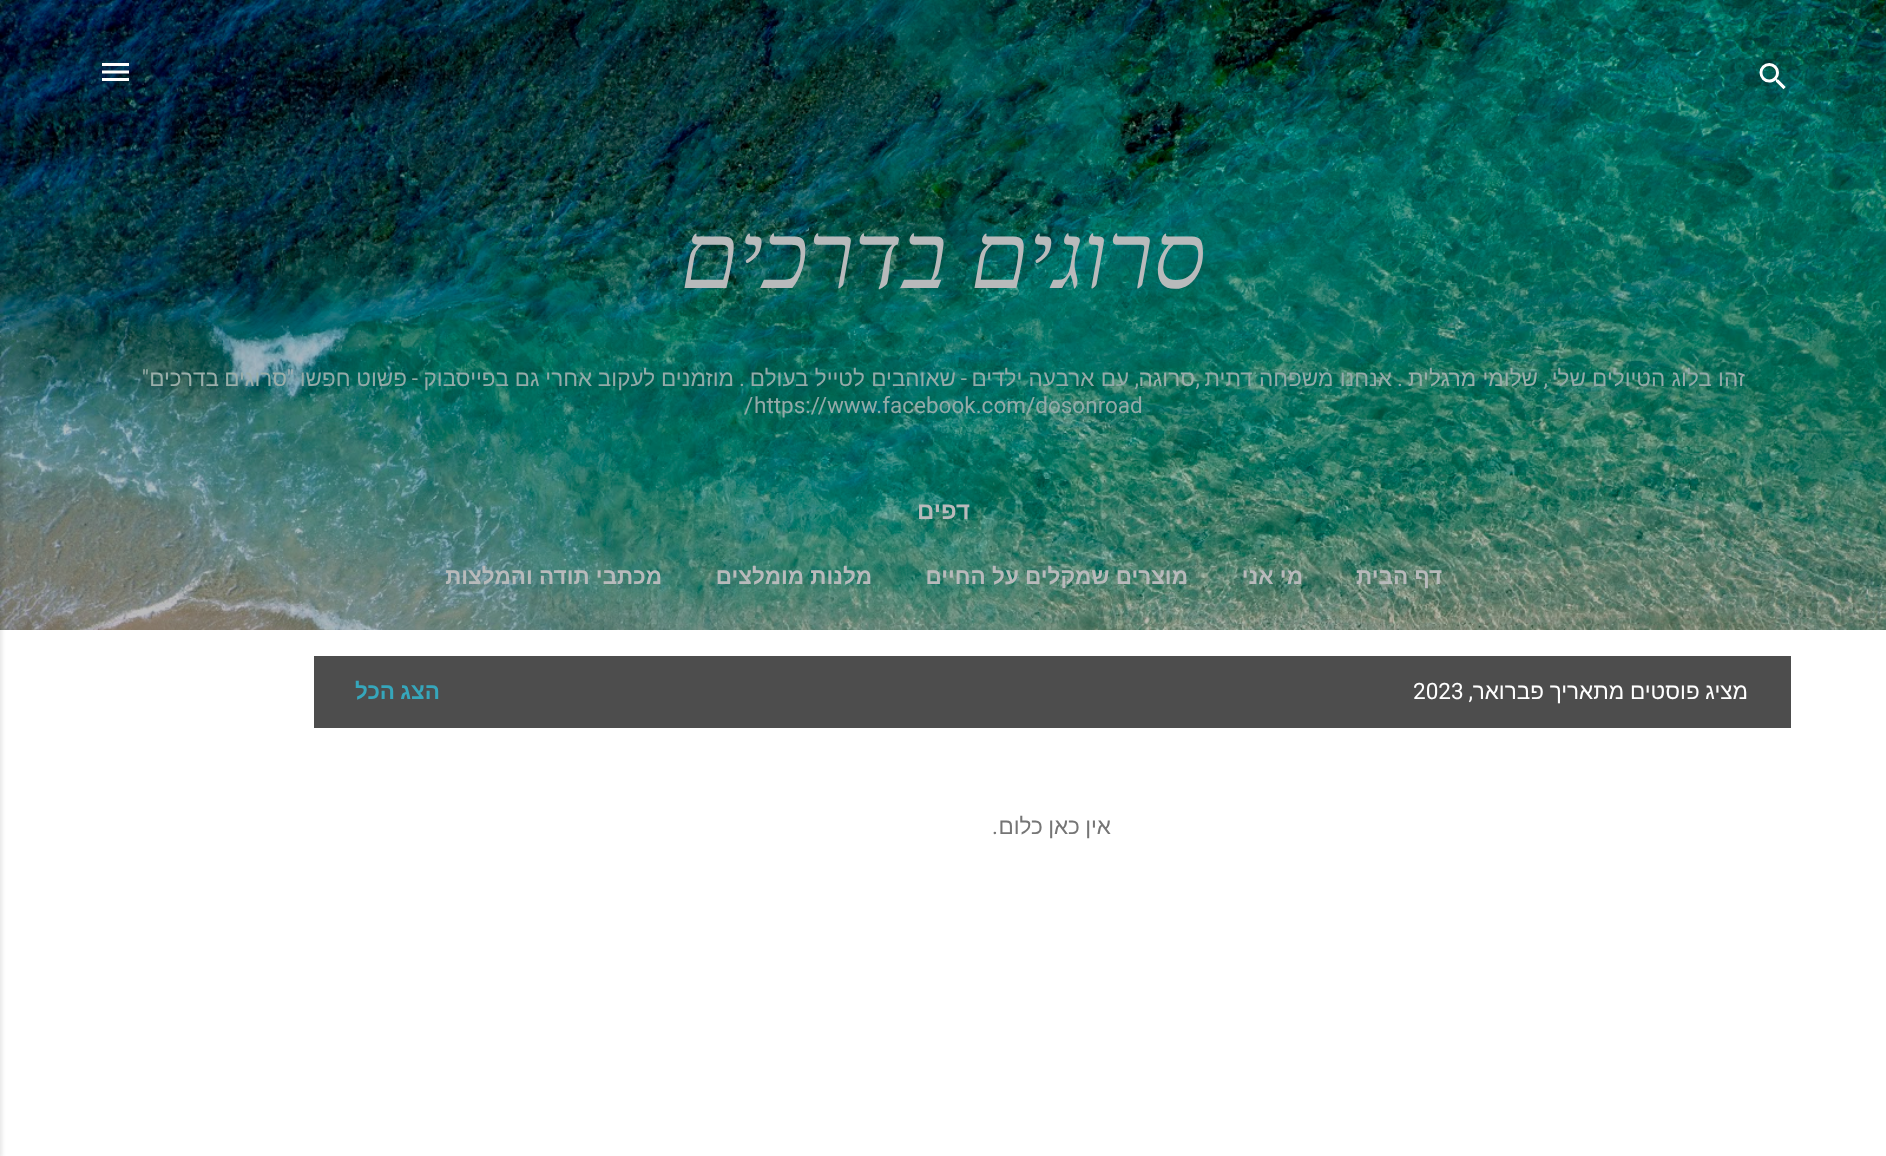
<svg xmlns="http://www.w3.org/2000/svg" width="1886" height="1156">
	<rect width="100%" height="100%" fill="#FFFFFF" />
	<image x="0" y="0" width="1886" height="630" href="assets/img1.png" />
	<image x="1759" y="63" width="27" height="27" href="assets/img2.png" />
	<image x="102" y="63" width="27" height="18" href="assets/img3.png" />
	<g font-family="Liberation Serif" font-size="93" font-style="italic" direction="rtl" fill="#B8BABB">
		<text x="1206" y="288">סרוגים</text>
		<text x="947" y="288">בדרכים</text>
	</g>
	<text x="1745" y="386" font-family="Liberation Sans" font-size="22.5" direction="rtl" fill="#93AAA8">זהו בלוג הטיולים שלי</text>
	<text x="1538" y="386" font-family="Liberation Sans" font-size="22.5" direction="rtl" fill="#9BAEAA">שלומי מרגלית</text>
	<text x="1392" y="386" font-family="Liberation Sans" font-size="22.5" direction="rtl" fill="#93AAA8">אנחנו משפחה דתית</text>
	<text x="1195" y="386" font-family="Liberation Sans" font-size="22.5" direction="rtl" fill="#9BAEAA">סרוגה</text>
	<text x="1129" y="386" font-family="Liberation Sans" font-size="22.5" direction="rtl" fill="#93AAA8">עם ארבעה ילדים</text>
	<text x="967" y="386" font-family="Roboto" font-size="22.5" direction="rtl" fill="#93AAA8">-</text>
	<g font-family="Liberation Sans" font-size="22.5" direction="rtl" fill="#93AAA8">
		<text x="956" y="386">שאוהבים לטייל בעולם</text>
		<text x="734" y="386" word-spacing="-0.5">מוזמנים לעקוב אחרי גם בפייסבוק</text>
	</g>
	<text x="418" y="386" font-family="Roboto" font-size="22.5" direction="rtl" fill="#93AAA8">-</text>
	<text x="407" y="386" word-spacing="-0.5" font-family="Liberation Sans" font-size="22.5" direction="rtl" fill="#93AAA8">פשוט חפשו</text>
	<text x="294" y="386" font-family="Roboto" font-size="22.5" direction="rtl" fill="#A6B2B5">"</text>
	<text x="287" y="386" word-spacing="-1" font-family="Liberation Sans" font-size="22.5" direction="rtl" fill="#9BAEAA">סרוגים בדרכים</text>
	<text x="149" y="386" font-family="Roboto" font-size="22.5" direction="rtl" fill="#9BAEAA">"</text>
	<g font-family="Roboto" font-size="22.5" direction="rtl" fill="#93AAA8">
		<text x="1548" y="386">,</text>
		<text x="1403" y="386">.</text>
		<text x="1200" y="386">,</text>
		<text x="1139" y="386">,</text>
		<text x="745" y="386">.</text>
	</g>
	<g font-family="Roboto" font-size="22.5" fill="#93AAA8">
		<text x="754" y="413">https://www.facebook.com/dosonroad</text>
		<text x="744" y="413">/</text>
	</g>
	<text x="970" y="519" font-family="Liberation Sans" font-size="24" font-weight="700" direction="rtl" fill="#B8BABB">דפים</text>
	<g font-family="Liberation Sans" font-size="22.5" font-weight="700" direction="rtl" fill="#B8BABB">
		<text x="1442" y="584">דף הבית</text>
		<text x="1303" y="584">מי אני</text>
		<text x="1188" y="584">מוצרים שמקלים על החיים</text>
		<text x="872" y="584">מלנות מומלצים</text>
		<text x="662" y="584">מכתבי תודה והמלצות</text>
	</g>
	<rect x="314" y="656" width="1477" height="72" fill="#4D4D4D" />
	<text x="1748" y="699" word-spacing="-0.5" font-family="Liberation Sans" font-size="22.5" direction="rtl" fill="#FFFFFF">מציג פוסטים מתאריך פברואר</text>
	<text x="1473" y="699" font-family="Roboto" font-size="22.5" direction="rtl" fill="#FFFFFF">,</text>
	<text x="1413" y="699" font-family="Roboto" font-size="22.5" fill="#FFFFFF">2023</text>
	<text x="440" y="699" word-spacing="-1" font-family="Liberation Sans" font-size="22.5" font-weight="700" direction="rtl" fill="#36A6BB">הצג הכל</text>
	<text x="1111" y="834" word-spacing="-1" font-family="Liberation Sans" font-size="22.5" direction="rtl" fill="#757575">אין כאן כלום</text>
	<text x="998" y="834" font-family="Roboto" font-size="22.5" direction="rtl" fill="#757575">.</text>
	<rect x="-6" y="2" width="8" height="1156" fill="#000000" fill-opacity="0.1" filter="blur(2px)" />
</svg>
